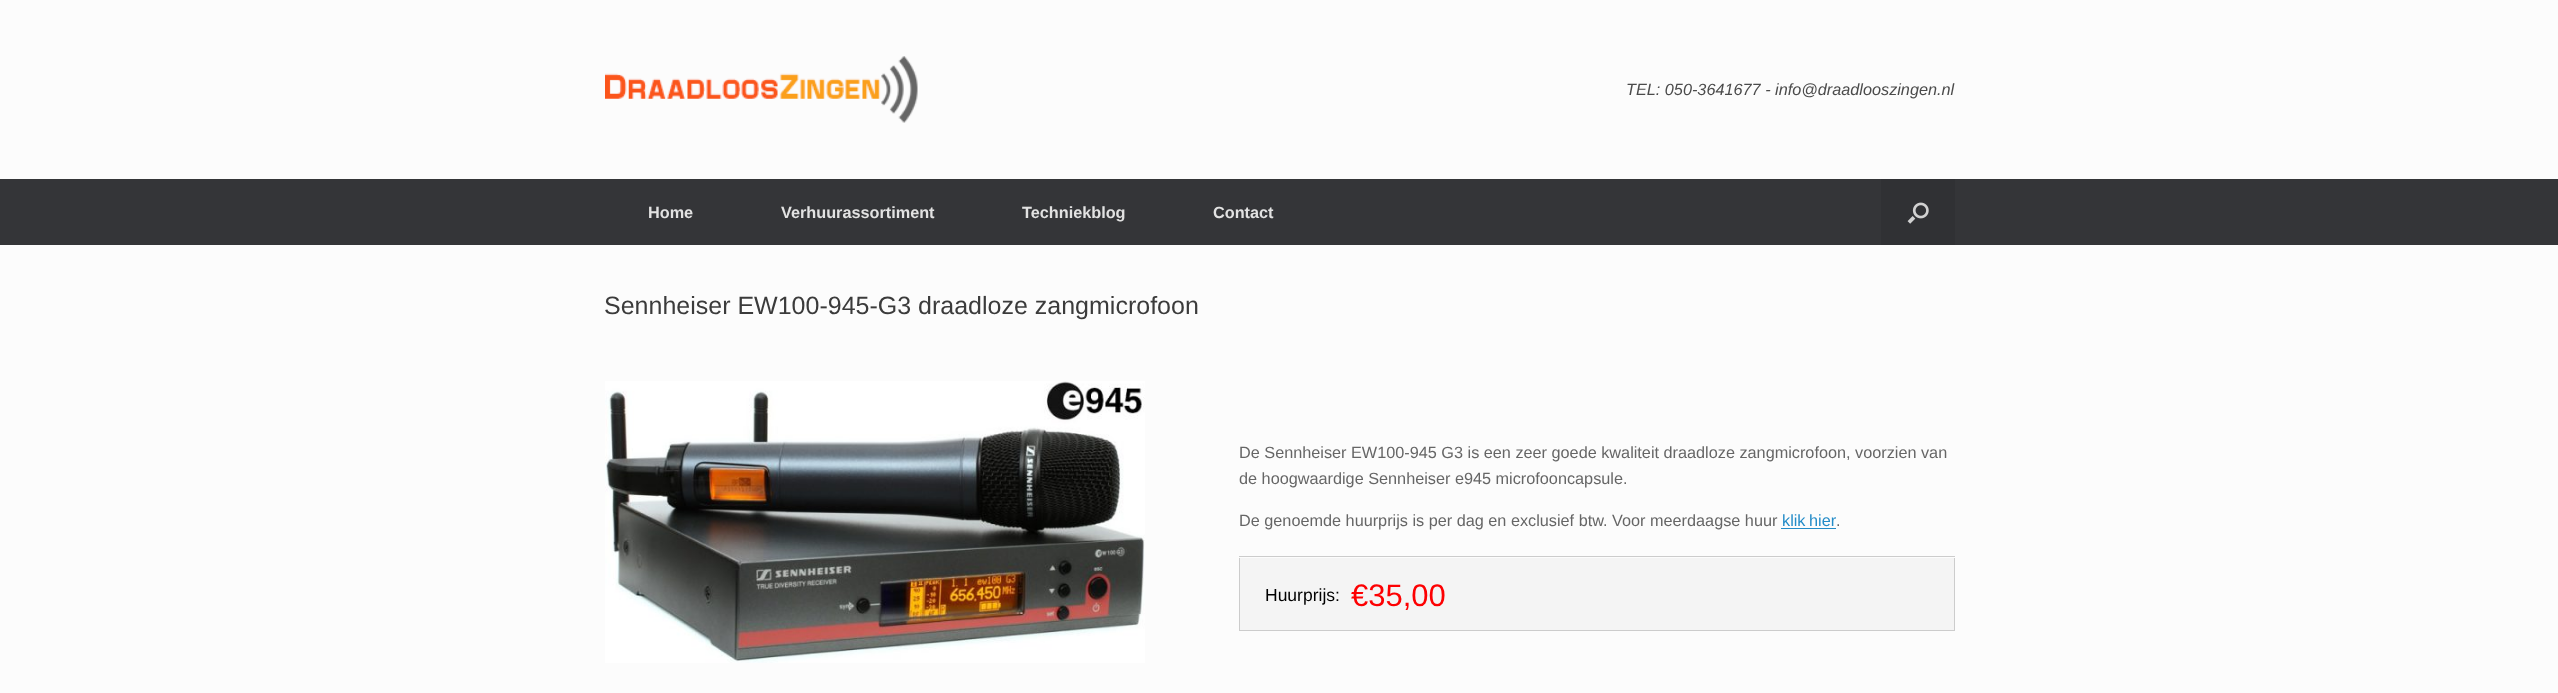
<svg xmlns="http://www.w3.org/2000/svg" width="2558" height="693">
	<rect width="100%" height="100%" fill="#FCFCFC" />
	<image x="605" y="56" width="313" height="67" href="assets/img1.png" />
	<text x="1626" y="95" font-family="Liberation Sans" font-size="16.25" font-style="italic" fill="#4B4B4B">TEL: 050-3641677 - info@draadlooszingen.nl</text>
	<rect x="0" y="179" width="2558" height="66" fill="#343538" />
	<g font-family="Liberation Sans" font-size="16.25" font-weight="700" fill="#E2E2E2">
		<text x="648" y="218">Home</text>
		<text x="781" y="218">Verhuurassortiment</text>
		<text x="1022" y="218">Techniekblog</text>
		<text x="1213" y="218">Contact</text>
	</g>
	<rect x="1881" y="179" width="74" height="66" fill="#303134" />
	<image x="1907" y="202" width="22" height="22" href="assets/img2.png" />
	<text x="604" y="314" font-family="Liberation Sans" font-size="25" fill="#3B3B3B">Sennheiser EW100-945-G3 draadloze zangmicrofoon</text>
	<image x="605" y="381" width="540" height="282" href="assets/img3.png" />
	<rect x="1239" y="556" width="716" height="1" fill="#CCCCCC" />
	<g font-family="Liberation Sans" font-size="16.25" fill="#666666">
		<text x="1239" y="458">De Sennheiser EW100-945 G3 is een zeer goede kwaliteit draadloze zangmicrofoon, voorzien van</text>
		<text x="1239" y="484">de hoogwaardige Sennheiser e945 microfooncapsule.</text>
		<text x="1239" y="526">De genoemde huurprijs is per dag en exclusief btw. Voor meerdaagse huur</text>
	</g>
	<text x="1782" y="526" word-spacing="-1" font-family="Liberation Sans" font-size="16.25" fill="#248CC8">klik hier</text>
	<rect x="1781" y="528" width="55" height="1" fill="#248CC8" />
	<text x="1836" y="526" font-family="Liberation Sans" font-size="16.25" fill="#666666">.</text>
	<rect x="1240" y="558" width="714" height="72" fill="#F4F4F4" />
	<rect x="1954" y="558" width="1" height="73" fill="#CCCCCC" />
	<rect x="1239" y="630" width="716" height="1" fill="#CCCCCC" />
	<rect x="1239" y="558" width="1" height="73" fill="#CCCCCC" />
	<text x="1265" y="601" font-family="Liberation Sans" font-size="17.5" fill="#000000">Huurprijs:</text>
	<text x="1351" y="606" font-family="Liberation Sans" font-size="31" fill="#FD0002">€35,00</text>
</svg>
